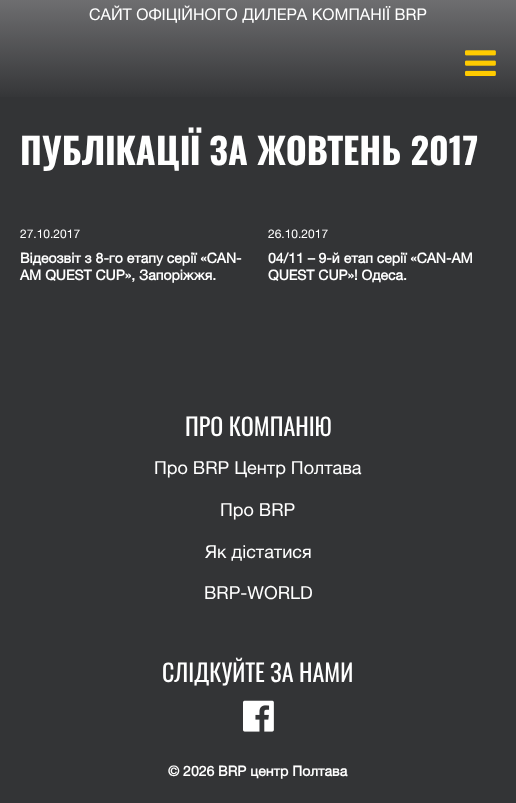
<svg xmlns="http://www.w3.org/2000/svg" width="516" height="803">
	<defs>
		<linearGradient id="g1" gradientUnits="userSpaceOnUse" x1="258" y1="0" x2="258" y2="101"><stop offset="0" stop-color="#6E6E70" /><stop offset="1" stop-color="#333436" /></linearGradient>
	</defs>
	<rect width="100%" height="100%" fill="#333436" />
	<rect x="0" y="0" width="516" height="97" fill="url(#g1)" />
	<text x="89" y="20" font-family="Helvetica Neue" font-size="16" fill="#FFFFFF">САЙТ ОФІЦІЙНОГО ДИЛЕРА КОМПАНІЇ BRP</text>
	<image x="465" y="50" width="31" height="26" href="assets/img1.png" />
	<text x="20" y="165" font-family="Oswald" font-size="36" font-weight="700" fill="#FFFFFF">ПУБЛІКАЦІЇ ЗА ЖОВТЕНЬ 2017</text>
	<text x="20" y="238" font-family="Helvetica Neue" font-size="12" fill="#FFFFFF">27.10.2017</text>
	<g font-family="Helvetica Neue" font-size="14" font-weight="700" fill="#FFFFFF">
		<text x="20" y="263">Відеозвіт з 8-го етапу серії «CAN-</text>
		<text x="20" y="280">AM QUEST CUP», Запоріжжя.</text>
	</g>
	<text x="268" y="238" font-family="Helvetica Neue" font-size="12" fill="#FFFFFF">26.10.2017</text>
	<g font-family="Helvetica Neue" font-size="14" font-weight="700" fill="#FFFFFF">
		<text x="268" y="263">04/11 – 9-й етап серії «CAN-AM</text>
		<text x="268" y="280">QUEST CUP»! Одеса.</text>
	</g>
	<text x="185" y="436" font-family="Oswald" font-size="24" fill="#FFFFFF">ПРО КОМПАНІЮ</text>
	<g font-family="Helvetica Neue" font-size="18" fill="#FFFFFF">
		<text x="154" y="474">Про BRP Центр Полтава</text>
		<text x="220" y="516">Про BRP</text>
		<text x="205" y="558">Як дістатися</text>
		<text x="204" y="599">BRP-WORLD</text>
	</g>
	<text x="162" y="682" font-family="Oswald" font-size="24" fill="#FFFFFF">СЛІДКУЙТЕ ЗА НАМИ</text>
	<image x="243" y="700" width="31" height="32" href="assets/img2.png" />
	<text x="168" y="776" font-family="Helvetica Neue" font-size="14" font-weight="700" fill="#FFFFFF">© 2026 BRP центр Полтава</text>
</svg>
